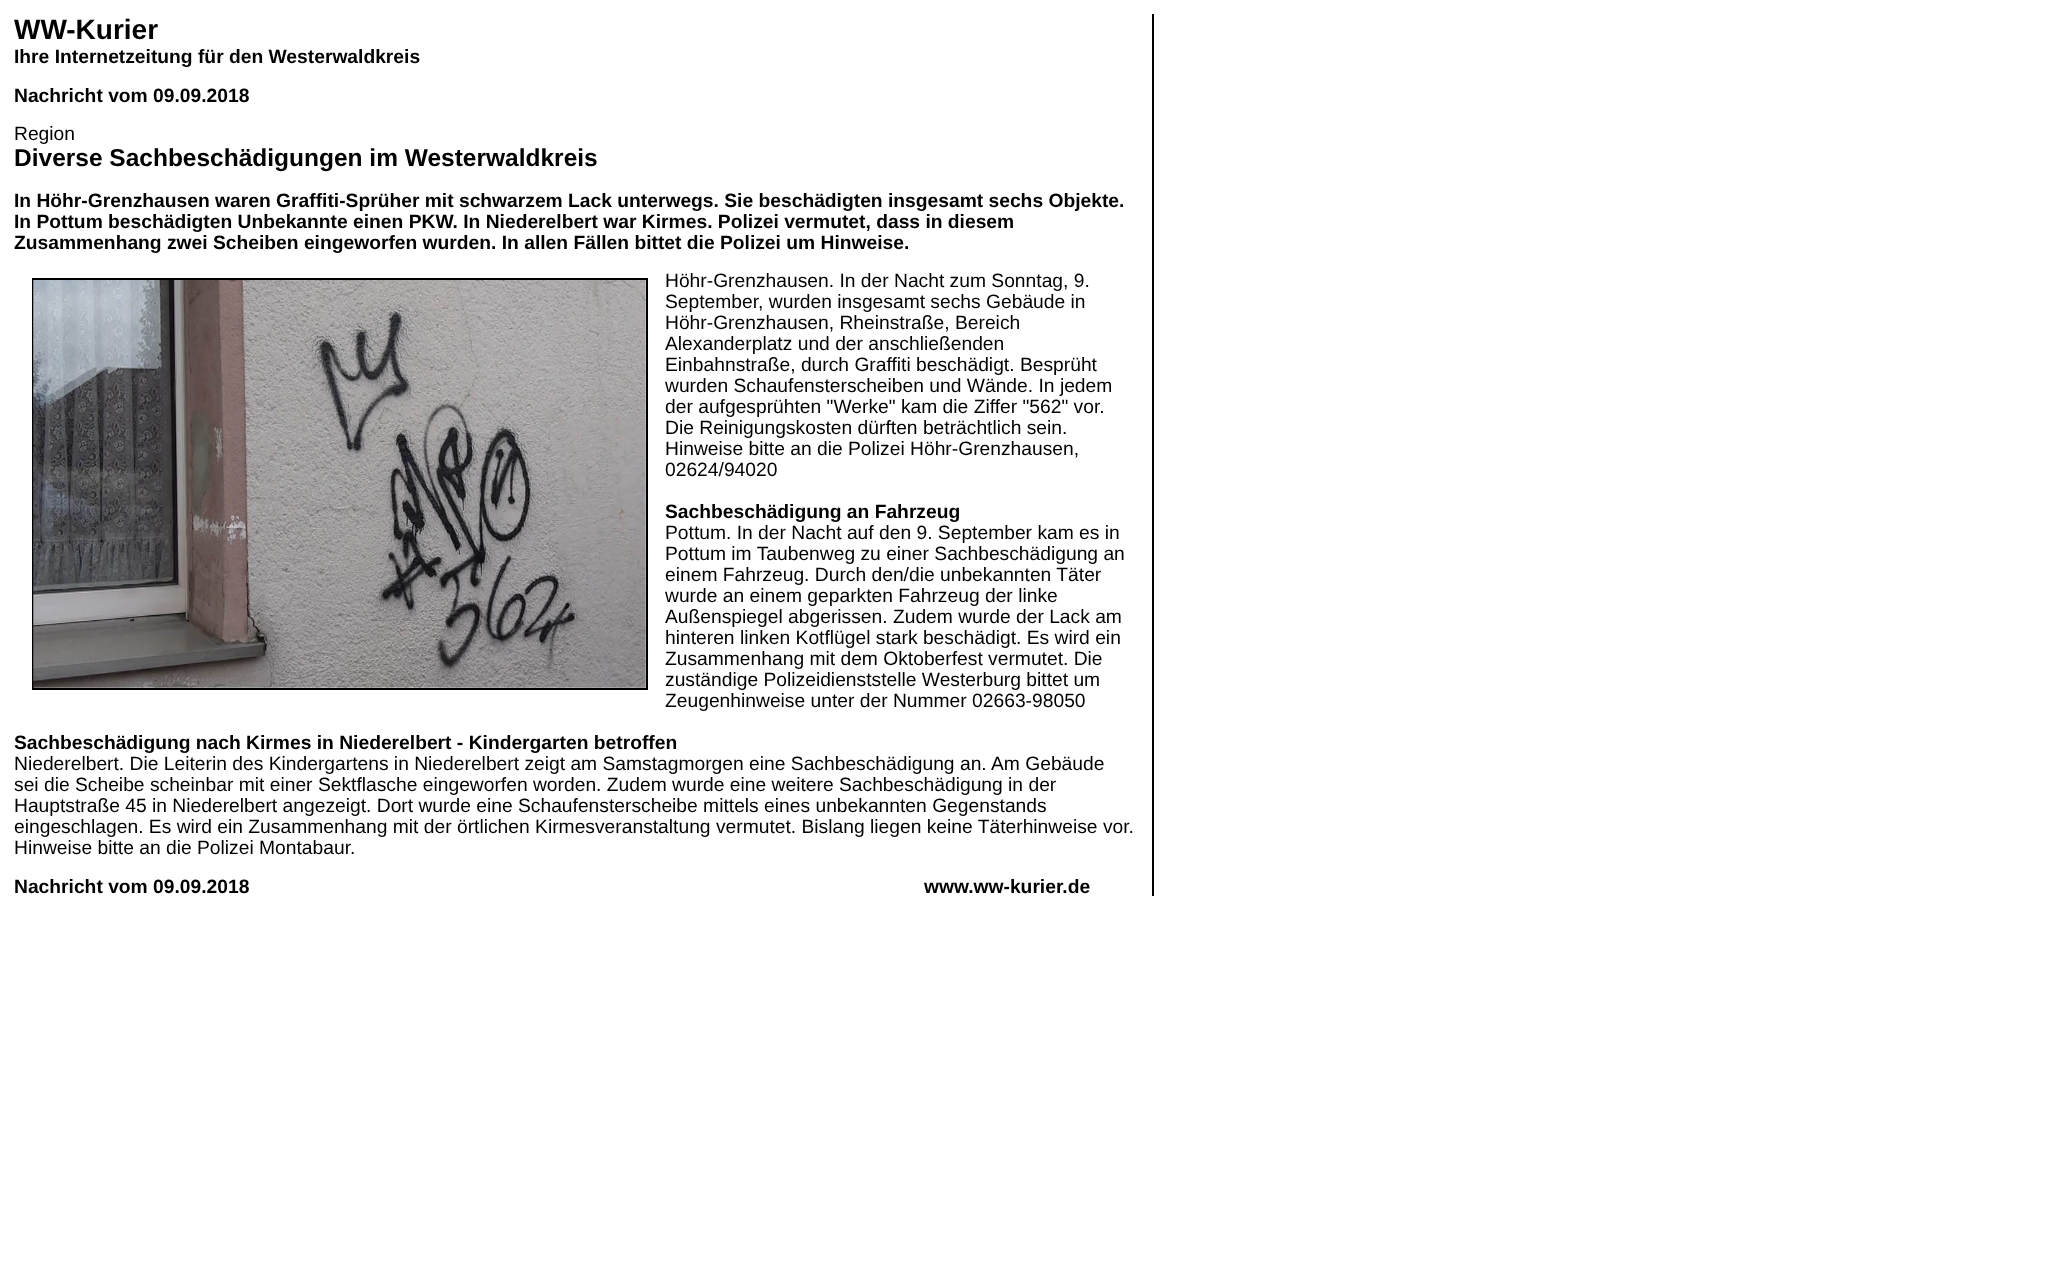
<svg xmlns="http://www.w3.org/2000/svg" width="2055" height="1282">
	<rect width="100%" height="100%" fill="#FFFFFF" />
	<text x="14" y="39" font-family="Liberation Sans" font-size="28" font-weight="700" fill="#000000">WW-Kurier</text>
	<g font-family="Liberation Sans" font-size="19.25" font-weight="700" fill="#000000">
		<text x="14" y="63">Ihre Internetzeitung für den Westerwaldkreis</text>
		<text x="14" y="102">Nachricht vom 09.09.2018</text>
	</g>
	<text x="14" y="140" font-family="Liberation Sans" font-size="19.25" fill="#000000">Region</text>
	<text x="14" y="166" font-family="Liberation Sans" font-size="24.5" font-weight="700" fill="#000000">Diverse Sachbeschädigungen im Westerwaldkreis</text>
	<g font-family="Liberation Sans" font-size="19.25" font-weight="700" fill="#000000">
		<text x="14" y="207">In Höhr-Grenzhausen waren Graffiti-Sprüher mit schwarzem Lack unterwegs. Sie beschädigten insgesamt sechs Objekte.</text>
		<text x="14" y="228">In Pottum beschädigten Unbekannte einen PKW. In Niederelbert war Kirmes. Polizei vermutet, dass in diesem</text>
		<text x="14" y="249">Zusammenhang zwei Scheiben eingeworfen wurden. In allen Fällen bittet die Polizei um Hinweise.</text>
	</g>
	<rect x="33" y="279" width="614" height="410" fill="none" stroke="#000000" stroke-width="2" />
	<image x="33" y="280" width="613" height="408" href="assets/img1.png" />
	<g font-family="Liberation Sans" font-size="19.25" fill="#000000">
		<text x="665" y="287">Höhr-Grenzhausen. In der Nacht zum Sonntag, 9.</text>
		<text x="665" y="308">September, wurden insgesamt sechs Gebäude in</text>
		<text x="665" y="329">Höhr-Grenzhausen, Rheinstraße, Bereich</text>
		<text x="665" y="350">Alexanderplatz und der anschließenden</text>
		<text x="665" y="371">Einbahnstraße, durch Graffiti beschädigt. Besprüht</text>
		<text x="665" y="392">wurden Schaufensterscheiben und Wände. In jedem</text>
		<text x="665" y="413">der aufgesprühten "Werke" kam die Ziffer "562" vor.</text>
		<text x="665" y="434">Die Reinigungskosten dürften beträchtlich sein.</text>
		<text x="665" y="455">Hinweise bitte an die Polizei Höhr-Grenzhausen,</text>
		<text x="665" y="476">02624/94020</text>
	</g>
	<text x="665" y="518" font-family="Liberation Sans" font-size="19.25" font-weight="700" fill="#000000">Sachbeschädigung an Fahrzeug</text>
	<g font-family="Liberation Sans" font-size="19.25" fill="#000000">
		<text x="665" y="539">Pottum. In der Nacht auf den 9. September kam es in</text>
		<text x="665" y="560">Pottum im Taubenweg zu einer Sachbeschädigung an</text>
		<text x="665" y="581">einem Fahrzeug. Durch den/die unbekannten Täter</text>
		<text x="665" y="602">wurde an einem geparkten Fahrzeug der linke</text>
		<text x="665" y="623">Außenspiegel abgerissen. Zudem wurde der Lack am</text>
		<text x="665" y="644">hinteren linken Kotflügel stark beschädigt. Es wird ein</text>
		<text x="665" y="665">Zusammenhang mit dem Oktoberfest vermutet. Die</text>
		<text x="665" y="686">zuständige Polizeidienststelle Westerburg bittet um</text>
		<text x="665" y="707">Zeugenhinweise unter der Nummer 02663-98050</text>
	</g>
	<text x="14" y="749" font-family="Liberation Sans" font-size="19.25" font-weight="700" fill="#000000">Sachbeschädigung nach Kirmes in Niederelbert - Kindergarten betroffen</text>
	<g font-family="Liberation Sans" font-size="19.25" fill="#000000">
		<text x="14" y="770">Niederelbert. Die Leiterin des Kindergartens in Niederelbert zeigt am Samstagmorgen eine Sachbeschädigung an. Am Gebäude</text>
		<text x="14" y="791">sei die Scheibe scheinbar mit einer Sektflasche eingeworfen worden. Zudem wurde eine weitere Sachbeschädigung in der</text>
		<text x="14" y="812">Hauptstraße 45 in Niederelbert angezeigt. Dort wurde eine Schaufensterscheibe mittels eines unbekannten Gegenstands</text>
		<text x="14" y="833">eingeschlagen. Es wird ein Zusammenhang mit der örtlichen Kirmesveranstaltung vermutet. Bislang liegen keine Täterhinweise vor.</text>
		<text x="14" y="854">Hinweise bitte an die Polizei Montabaur.</text>
	</g>
	<g font-family="Liberation Sans" font-size="19.25" font-weight="700" fill="#000000">
		<text x="14" y="893">Nachricht vom 09.09.2018</text>
		<text x="924" y="893">www.ww-kurier.de</text>
	</g>
	<rect x="1152" y="14" width="2" height="882" fill="#000000" />
</svg>
